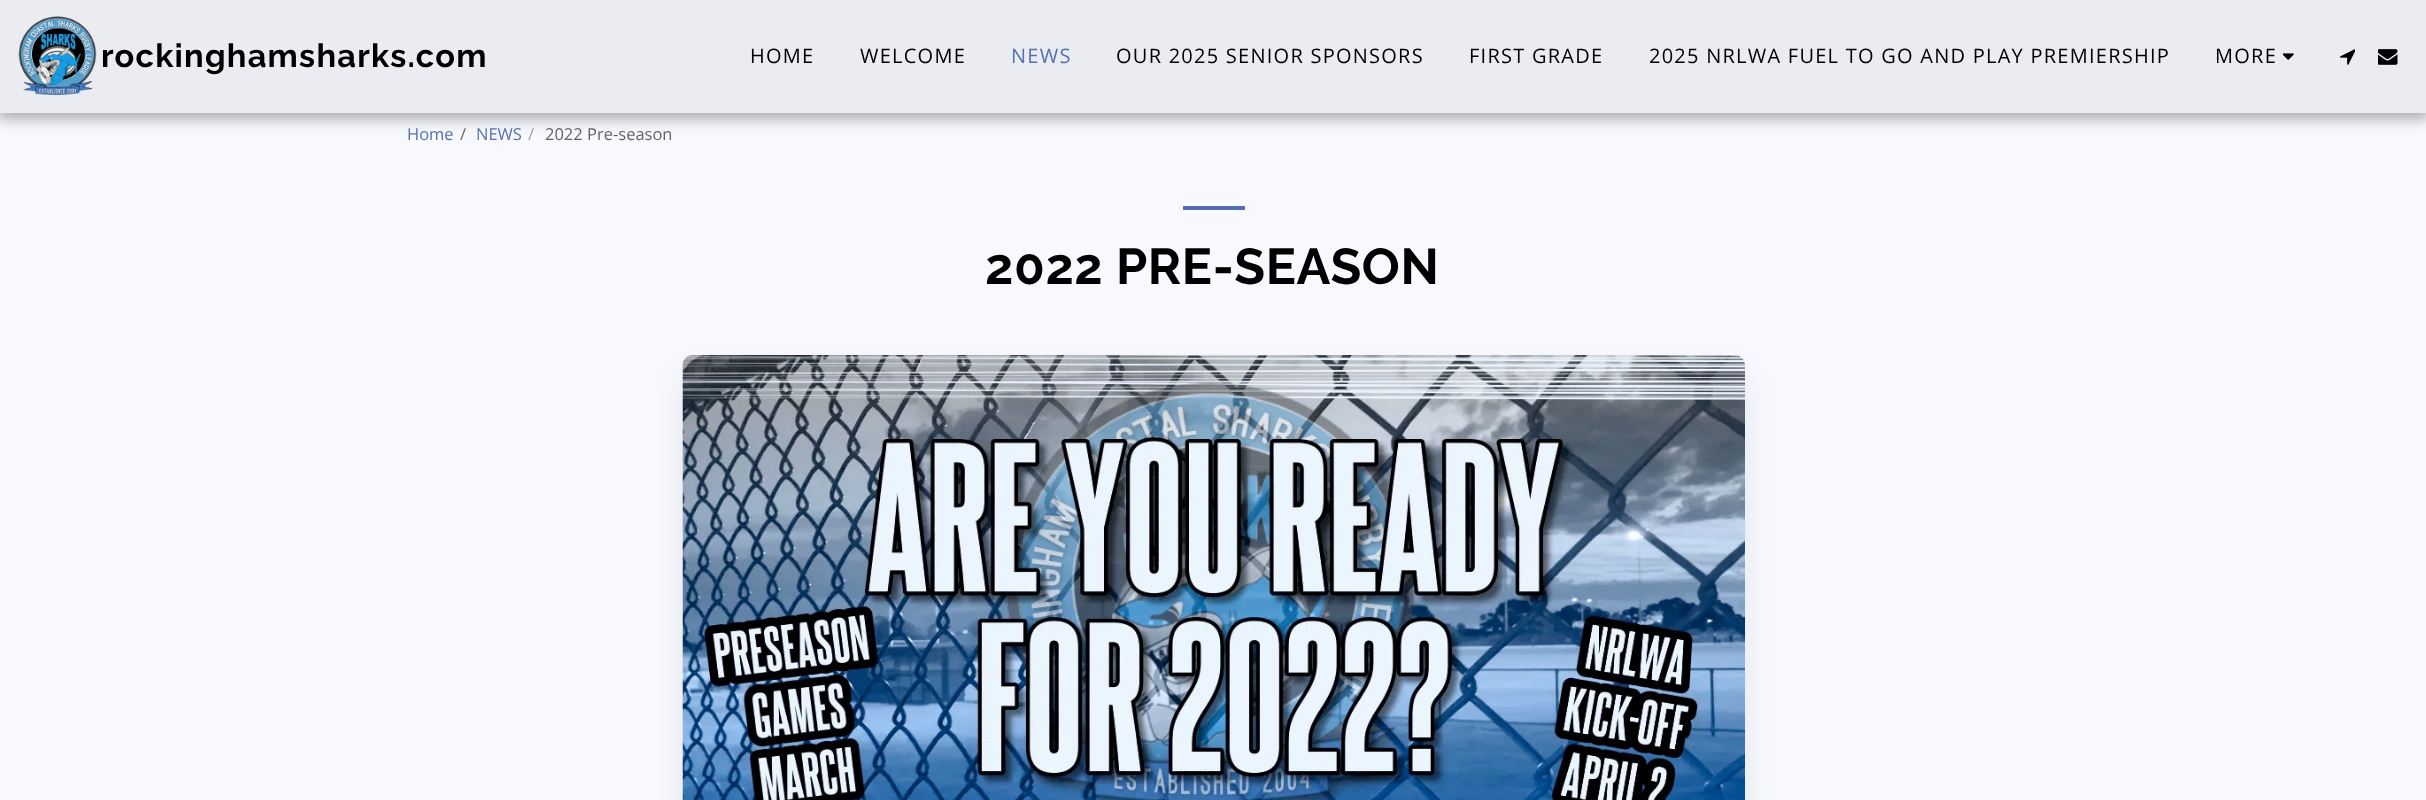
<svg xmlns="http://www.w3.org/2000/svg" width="2426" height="800">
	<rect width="100%" height="100%" fill="#F8F8FF" />
	<rect x="-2" y="0" width="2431" height="118" fill="#000000" fill-opacity="0.35" filter="blur(7.5px)" />
	<rect x="0" y="0" width="2426" height="113" fill="#EBECF1" />
	<image x="18" y="16" width="79" height="79" href="assets/img1.png" />
	<text x="101" y="67" font-family="Raleway" font-size="32.5" font-weight="700" letter-spacing="1.25" fill="#000000">rockinghamsharks.com</text>
	<g font-family="Open Sans" font-size="20" letter-spacing="1.25" fill="#000000">
		<text x="750" y="63">HOME</text>
		<text x="860" y="63">WELCOME</text>
	</g>
	<text x="1011" y="63" font-family="Open Sans" font-size="20" letter-spacing="1.25" fill="#556FB5">NEWS</text>
	<g font-family="Open Sans" font-size="20" letter-spacing="1.25" fill="#000000">
		<text x="1116" y="63">OUR 2025 SENIOR SPONSORS</text>
		<text x="1469" y="63">FIRST GRADE</text>
		<text x="1649" y="63">2025 NRLWA FUEL TO GO AND PLAY PREMIERSHIP</text>
		<text x="2215" y="63">MORE</text>
	</g>
	<image x="2283" y="53" width="11" height="7" href="assets/img2.png" />
	<image x="2340" y="49" width="15" height="16" href="assets/img3.png" />
	<image x="2378" y="49" width="20" height="16" href="assets/img4.png" />
	<text x="407" y="140" font-family="Open Sans" font-size="16.5" fill="#556FB5">Home</text>
	<text x="460" y="140" font-family="Open Sans" font-size="16.5" fill="#636366">/</text>
	<text x="476" y="140" font-family="Open Sans" font-size="16.5" fill="#556FB5">NEWS</text>
	<text x="528" y="140" font-family="Open Sans" font-size="16.5" fill="#9F9FA3">/</text>
	<text x="545" y="140" font-family="Open Sans" font-size="16.5" fill="#636366">2022 Pre-season</text>
	<rect x="1183" y="206" width="62" height="4" fill="#556FB5" />
	<text x="985" y="284" font-family="Raleway" font-size="50.25" font-weight="700" letter-spacing="0.6" fill="#000000">2022 PRE-SEASON</text>
	<rect x="683" y="374" width="1062" height="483" rx="10" fill="#000000" fill-opacity="0.08" filter="blur(15.5px)" />
	<image x="682" y="355" width="1063" height="445" href="assets/img5.png" />
</svg>
